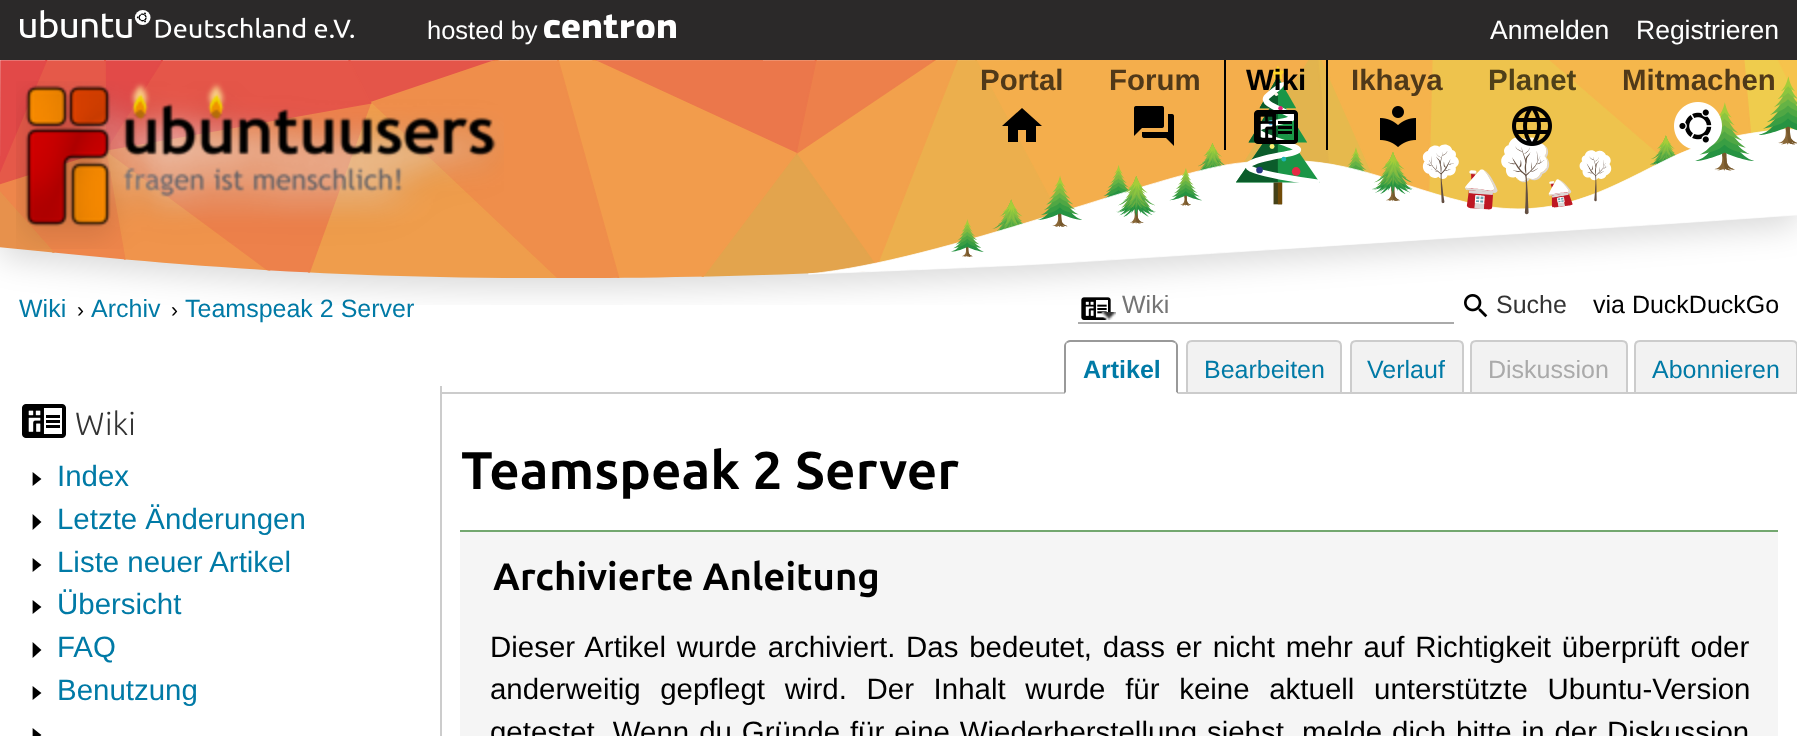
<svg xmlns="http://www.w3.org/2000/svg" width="1797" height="736">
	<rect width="100%" height="100%" fill="#FFFFFF" />
	<rect x="0" y="0" width="1797" height="60" fill="#2B2929" />
	<image x="20" y="10" width="334" height="28" href="assets/img1.png" />
	<text x="427" y="39" font-family="Liberation Sans" font-size="25.5" fill="#FFFFFF">hosted by</text>
	<image x="544" y="14" width="132" height="24" href="assets/img2.png" />
	<g font-family="Liberation Sans" font-size="26.5" fill="#FFFFFF">
		<text x="1490" y="39">Anmelden</text>
		<text x="1636" y="39">Registrieren</text>
	</g>
	<g font-family="Liberation Sans" font-size="25" fill="#007AA6">
		<text x="19" y="317">Wiki</text>
		<text x="91" y="317">Archiv</text>
		<text x="185" y="317">Teamspeak 2 Server</text>
	</g>
	<image x="1081" y="297" width="30" height="23" href="assets/img10.png" />
	<text x="1122" y="313" font-family="Liberation Sans" font-size="25" fill="#757575">Wiki</text>
	<text x="1593" y="313" font-family="Liberation Sans" font-size="25" fill="#000000">via DuckDuckGo</text>
	<image x="0" y="60" width="1797" height="245" href="assets/img3.png" />
	<image x="16" y="81" width="488" height="168" href="assets/img4.png" />
	<text x="980" y="90" font-family="Liberation Sans" font-size="29.45" font-weight="700" fill="#503919">Portal</text>
	<path d="M1018 142V130H1026V142H1036V126H1042L1022 108L1002 126H1008V142Z" fill="#000000" />
	<text x="1109" y="90" font-family="Liberation Sans" font-size="29.45" font-weight="700" fill="#503919">Forum</text>
	<image x="1134" y="106" width="40" height="40" href="assets/img5.png" />
	<rect x="1326" y="60" width="2" height="90" fill="#000000" />
	<rect x="1224" y="60" width="2" height="90" fill="#000000" />
	<text x="1246" y="90" font-family="Liberation Sans" font-size="29.45" font-weight="700" fill="#000000">Wiki</text>
	<image x="1254" y="110" width="44" height="34" href="assets/img6.png" />
	<text x="1351" y="90" font-family="Liberation Sans" font-size="29.45" font-weight="700" fill="#503919">Ikhaya</text>
	<image x="1380" y="106" width="36" height="41" href="assets/img7.png" />
	<text x="1488" y="90" font-family="Liberation Sans" font-size="29.45" font-weight="700" fill="#4F4019">Planet</text>
	<image x="1512" y="106" width="40" height="40" href="assets/img8.png" />
	<text x="1622" y="90" font-family="Liberation Sans" font-size="29.45" font-weight="700" fill="#503919">Mitmachen</text>
	<image x="1674" y="102" width="48" height="47" href="assets/img9.png" />
	<g font-family="Liberation Sans" font-size="21" fill="#000000">
		<text x="77" y="317">›</text>
		<text x="171" y="317">›</text>
	</g>
	<rect x="1078" y="322" width="376" height="2" fill="#AAAAAA" />
	<image x="1464" y="294" width="24" height="24" href="assets/img11.png" />
	<text x="1496" y="313" font-family="Liberation Sans" font-size="25" fill="#333333">Suche</text>
	<image x="1101" y="312" width="15" height="8" href="assets/img12.png" />
	<rect x="442" y="392" width="1192" height="2" fill="#CCCCCC" />
	<path d="M1070 340H1172C1175.5 340 1178 342.5 1178 346V394H1064V346C1064 342.5 1066.5 340 1070 340Z" fill="#FFFFFF" />
	<path d="M1070 340C1068 340 1067 341 1066 342L1067 343L1070 342H1172L1175 343L1176 342C1175 341 1174 340 1172 340Z" fill="#999999" />
	<path d="M1178 394V346C1178 344 1177 343 1176 342L1175 343C1176 344 1176 345 1176 346V392Z" fill="#999999" />
	<path d="M1178 394L1176 392H1066L1064 394Z" fill="#FFFFFF" />
	<path d="M1064 394L1066 392V346C1066 345 1066 344 1067 343L1066 342C1065 343 1064 344 1064 346Z" fill="#999999" />
	<text x="1083" y="378" font-family="Liberation Sans" font-size="25" font-weight="700" fill="#007AA6">Artikel</text>
	<path d="M1192 341H1336C1339 341 1341 343 1341 346V393H1187V346C1187 343 1189 341 1192 341Z" fill="#F2F2F2" stroke="#CCCCCC" stroke-width="2" />
	<text x="1204" y="378" font-family="Liberation Sans" font-size="25" fill="#007AA6">Bearbeiten</text>
	<path d="M1356 341H1458C1461 341 1463 343 1463 346V393H1351V346C1351 343 1353 341 1356 341Z" fill="#F2F2F2" stroke="#CCCCCC" stroke-width="2" />
	<text x="1367" y="378" font-family="Liberation Sans" font-size="25" fill="#007AA6">Verlauf</text>
	<path d="M1476 341H1622C1625 341 1627 343 1627 346V393H1471V346C1471 343 1473 341 1476 341Z" fill="#F2F2F2" stroke="#CCCCCC" stroke-width="2" />
	<text x="1488" y="378" font-family="Liberation Sans" font-size="25" fill="#AAAAAA">Diskussion</text>
	<path d="M1640 341H1792C1795 341 1797 343 1797 346V393H1635V346C1635 343 1637 341 1640 341Z" fill="#F2F2F2" stroke="#CCCCCC" stroke-width="2" />
	<text x="1652" y="378" font-family="Liberation Sans" font-size="25" fill="#007AA6">Abonnieren</text>
	<rect x="440" y="386" width="2" height="350" fill="#CCCCCC" />
	<image x="22" y="404" width="44" height="34" href="assets/img13.png" />
	<text x="75" y="435" font-family="Ubuntu" font-size="32" font-weight="300" fill="#333333">Wiki</text>
	<image x="32" y="472" width="10" height="14" href="assets/img14.png" />
	<text x="57" y="486" font-family="Liberation Sans" font-size="29.45" fill="#007AA6">Index</text>
	<image x="32" y="514" width="10" height="16" href="assets/img15.png" />
	<text x="57" y="529" font-family="Liberation Sans" font-size="29.45" fill="#007AA6">Letzte Änderungen</text>
	<image x="32" y="558" width="10" height="14" href="assets/img14.png" />
	<text x="57" y="572" font-family="Liberation Sans" font-size="29.45" fill="#007AA6">Liste neuer Artikel</text>
	<image x="32" y="600" width="10" height="14" href="assets/img14.png" />
	<text x="57" y="614" font-family="Liberation Sans" font-size="29.45" fill="#007AA6">Übersicht</text>
	<image x="32" y="642" width="10" height="16" href="assets/img15.png" />
	<text x="57" y="657" font-family="Liberation Sans" font-size="29.45" fill="#007AA6">FAQ</text>
	<image x="32" y="686" width="10" height="14" href="assets/img14.png" />
	<text x="57" y="700" font-family="Liberation Sans" font-size="29.45" fill="#007AA6">Benutzung</text>
	<image x="32" y="728" width="10" height="8" href="assets/img16.png" />
	<text x="461" y="489" font-family="Ubuntu" font-size="53" font-weight="700" fill="#000000">Teamspeak 2 Server</text>
	<rect x="460" y="532" width="1318" height="204" fill="#F5F5F5" />
	<rect x="460" y="530" width="1318" height="2" fill="#73A76F" />
	<text x="493" y="590" font-family="Ubuntu" font-size="38.25" font-weight="700" fill="#000000">Archivierte Anleitung</text>
	<g font-family="Liberation Sans" font-size="29.45" fill="#000000">
		<text x="490" y="657" word-spacing="2.6">Dieser Artikel wurde archiviert. Das bedeutet, dass er nicht mehr auf Richtigkeit überprüft oder</text>
		<text x="490" y="699" word-spacing="11.5">anderweitig gepflegt wird. Der Inhalt wurde für keine aktuell unterstützte Ubuntu-Version</text>
		<text x="490" y="742" word-spacing="1.75">getestet. Wenn du Gründe für eine Wiederherstellung siehst, melde dich bitte in der Diskussion</text>
	</g>
</svg>
